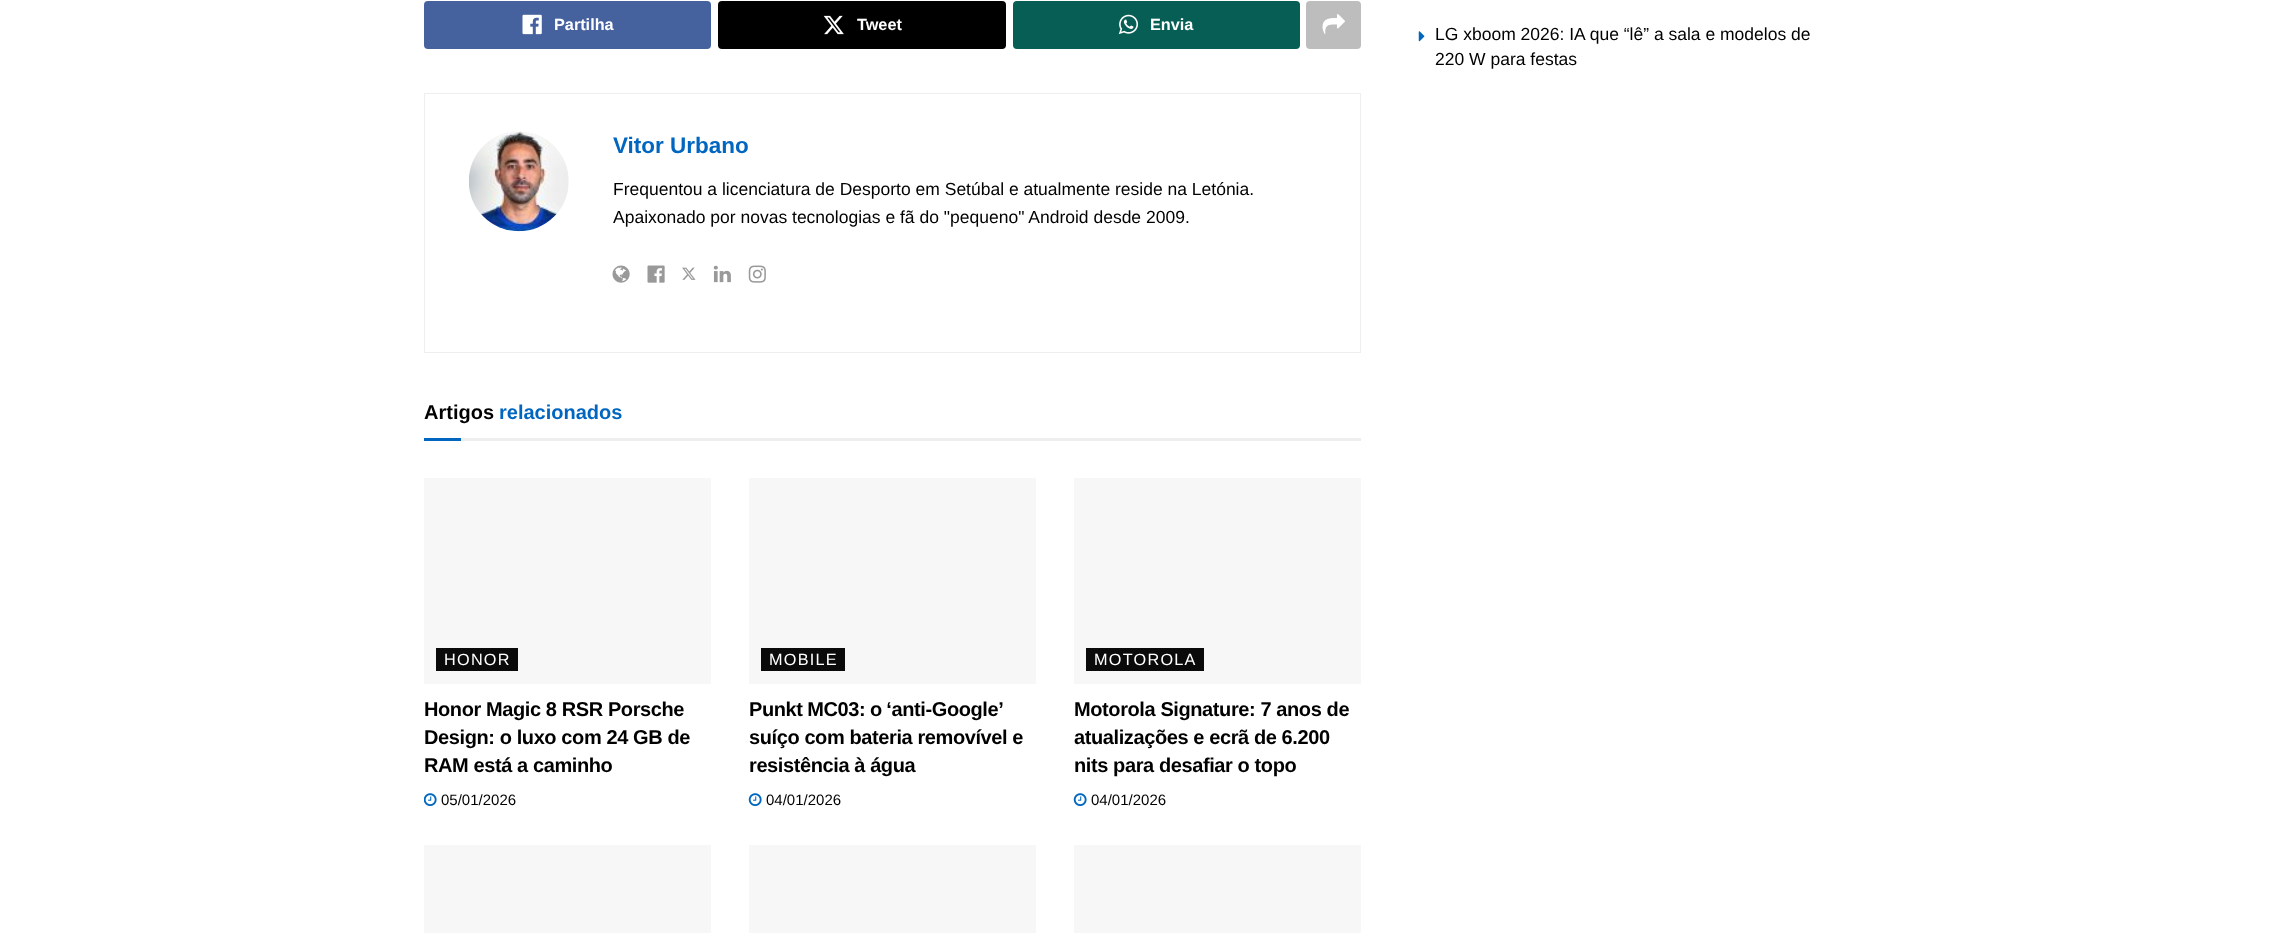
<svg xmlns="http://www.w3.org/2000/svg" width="2272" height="933">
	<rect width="100%" height="100%" fill="#FFFFFF" />
	<rect x="424" y="1" width="287" height="48" rx="4" fill="#45629F" />
	<image x="522" y="14" width="20" height="21" href="assets/img1.png" />
	<text x="554" y="30" font-family="Liberation Sans" font-size="16.25" font-weight="700" fill="#FFFFFF">Partilha</text>
	<rect x="718" y="1" width="288" height="48" rx="4" fill="#000000" />
	<image x="823" y="15" width="21" height="20" href="assets/img2.png" />
	<text x="857" y="30" font-family="Liberation Sans" font-size="16.25" font-weight="700" fill="#FFFFFF">Tweet</text>
	<rect x="1013" y="1" width="287" height="48" rx="4" fill="#075E54" />
	<image x="1118" y="14" width="20" height="21" href="assets/img3.png" />
	<text x="1150" y="30" font-family="Liberation Sans" font-size="16.25" font-weight="700" fill="#FFFFFF">Envia</text>
	<rect x="1306" y="1" width="55" height="48" rx="4" fill="#BDBDBD" />
	<image x="1322" y="14" width="23" height="20" href="assets/img4.png" />
	<rect x="424.5" y="93.5" width="936" height="259" fill="none" stroke="#EEEEEE" />
	<image x="468" y="131" width="101" height="101" href="assets/img5.png" />
	<text x="613" y="153" font-family="Liberation Sans" font-size="22.5" font-weight="700" fill="#0066BF">Vitor Urbano</text>
	<g font-family="Liberation Sans" font-size="17.5" fill="#000000">
		<text x="613" y="195">Frequentou a licenciatura de Desporto em Setúbal e atualmente reside na Letónia.</text>
		<text x="613" y="223">Apaixonado por novas tecnologias e fã do "pequeno" Android desde 2009.</text>
	</g>
	<image x="612" y="265" width="18" height="18" href="assets/img6.png" />
	<image x="647" y="265" width="18" height="18" href="assets/img7.png" />
	<image x="682" y="267" width="14" height="13" href="assets/img8.png" />
	<image x="713" y="265" width="18" height="18" href="assets/img9.png" />
	<image x="748" y="265" width="18" height="18" href="assets/img10.png" />
	<rect x="461" y="438" width="900" height="3" fill="#EEEEEE" />
	<text x="424" y="419" font-family="Liberation Sans" font-size="20" font-weight="700" fill="#000000">Artigos</text>
	<text x="499" y="419" font-family="Liberation Sans" font-size="20" font-weight="700" fill="#0066BF">relacionados</text>
	<rect x="424" y="438" width="37" height="3" fill="#0066BF" />
	<rect x="424" y="478" width="287" height="206" fill="#F7F7F7" />
	<rect x="436" y="648" width="82" height="23" fill="#0A0A0A" />
	<text x="444" y="665" font-family="Liberation Sans" font-size="16.25" letter-spacing="1.25" fill="#FFFFFF">HONOR</text>
	<g font-family="Liberation Sans" font-size="20" font-weight="700" letter-spacing="-0.4" fill="#000000">
		<text x="424" y="716">Honor Magic 8 RSR Porsche</text>
		<text x="424" y="744">Design: o luxo com 24 GB de</text>
		<text x="424" y="772">RAM está a caminho</text>
	</g>
	<image x="424" y="793" width="13" height="14" href="assets/img11.png" />
	<text x="441" y="805" font-family="Liberation Sans" font-size="15" fill="#000000">05/01/2026</text>
	<rect x="749" y="478" width="287" height="206" fill="#F7F7F7" />
	<rect x="761" y="648" width="84" height="23" fill="#0A0A0A" />
	<text x="769" y="665" font-family="Liberation Sans" font-size="16.25" letter-spacing="1.25" fill="#FFFFFF">MOBILE</text>
	<g font-family="Liberation Sans" font-size="20" font-weight="700" letter-spacing="-0.4" fill="#000000">
		<text x="749" y="716" word-spacing="-0.5">Punkt MC03: o ‘anti-Google’</text>
		<text x="749" y="744">suíço com bateria removível e</text>
		<text x="749" y="772">resistência à água</text>
	</g>
	<image x="748" y="793" width="14" height="14" href="assets/img12.png" />
	<text x="766" y="805" font-family="Liberation Sans" font-size="15" fill="#000000">04/01/2026</text>
	<rect x="1074" y="478" width="287" height="206" fill="#F7F7F7" />
	<rect x="1086" y="648" width="118" height="23" fill="#0A0A0A" />
	<text x="1094" y="665" font-family="Liberation Sans" font-size="16.25" letter-spacing="1.25" fill="#FFFFFF">MOTOROLA</text>
	<g font-family="Liberation Sans" font-size="20" font-weight="700" letter-spacing="-0.4" fill="#000000">
		<text x="1074" y="716">Motorola Signature: 7 anos de</text>
		<text x="1074" y="744">atualizações e ecrã de 6.200</text>
		<text x="1074" y="772">nits para desafiar o topo</text>
	</g>
	<image x="1073" y="793" width="14" height="14" href="assets/img12.png" />
	<text x="1091" y="805" font-family="Liberation Sans" font-size="15" fill="#000000">04/01/2026</text>
	<rect x="424" y="845" width="287" height="88" fill="#F7F7F7" />
	<rect x="749" y="845" width="287" height="88" fill="#F7F7F7" />
	<rect x="1074" y="845" width="287" height="88" fill="#F7F7F7" />
	<image x="1418" y="31" width="7" height="11" href="assets/img13.png" />
	<g font-family="Liberation Sans" font-size="17.5" fill="#000000">
		<text x="1435" y="40">LG xboom 2026: IA que “lê” a sala e modelos de</text>
		<text x="1435" y="65">220 W para festas</text>
	</g>
</svg>
